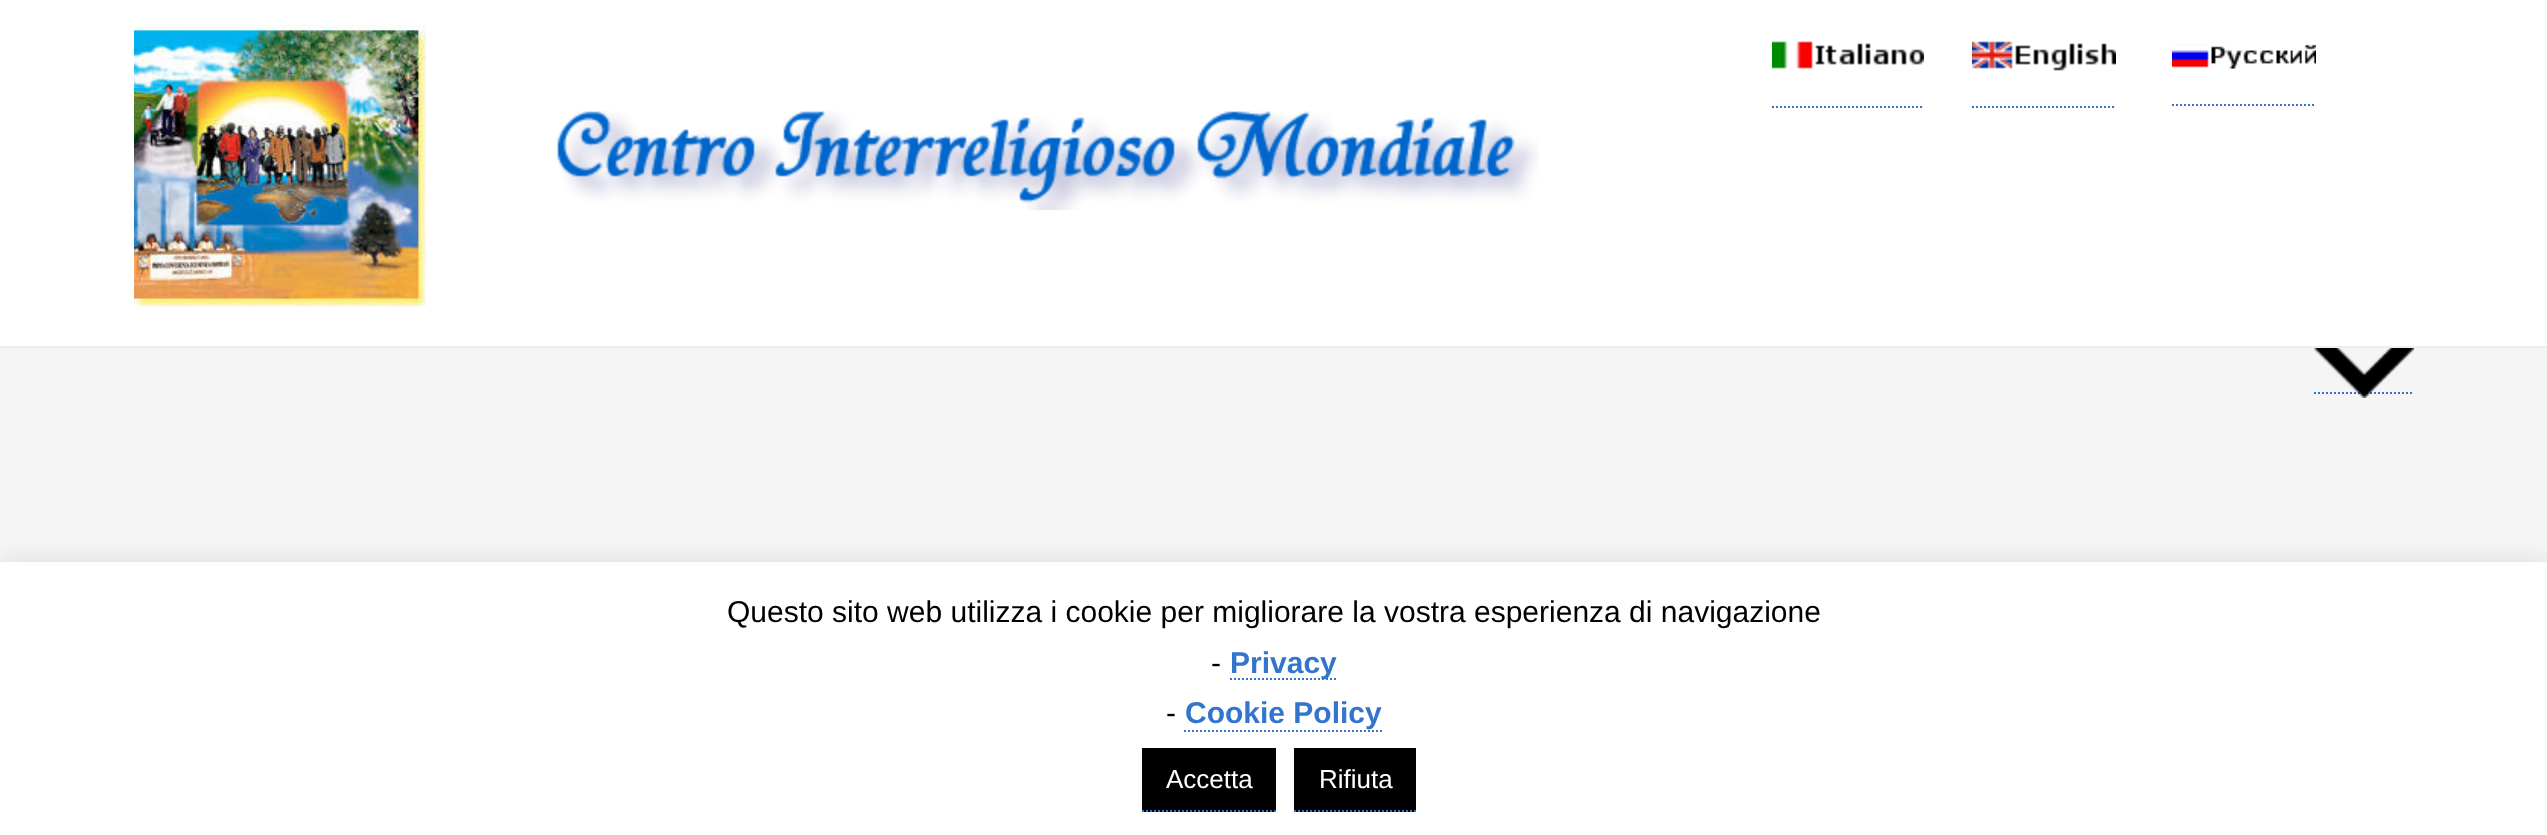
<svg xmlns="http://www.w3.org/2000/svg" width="2547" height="835">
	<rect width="100%" height="100%" fill="#F5F5F5" />
	<rect x="0" y="0" width="2547" height="346" fill="#FFFFFF" />
	<rect x="0" y="346" width="2547" height="2" fill="#EEEEEE" />
	<image x="134" y="24" width="292" height="282" href="assets/img1.png" />
	<image x="1772" y="41" width="152" height="28" href="assets/img2.png" />
	<path d="M1772 107H1924" fill="none" stroke="#3375CC" stroke-width="2" stroke-dasharray="2 2" />
	<image x="1972" y="41" width="144" height="30" href="assets/img3.png" />
	<path d="M1972 107H2116" fill="none" stroke="#3375CC" stroke-width="2" stroke-dasharray="2 2" />
	<image x="2172" y="44" width="144" height="25" href="assets/img4.png" />
	<path d="M2172 105H2316" fill="none" stroke="#3375CC" stroke-width="2" stroke-dasharray="2 2" />
	<image x="557" y="111" width="982" height="99" href="assets/img5.png" />
	<path d="M2314 393H2414" fill="none" stroke="#3375CC" stroke-width="2" stroke-dasharray="2 2" />
	<image x="2314" y="348" width="100" height="50" href="assets/img6.png" />
	<rect x="0" y="560" width="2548" height="274" fill="#ACABAB" fill-opacity="0.3" filter="blur(10px)" />
	<rect x="0" y="562" width="2547" height="273" fill="#FFFFFF" />
	<g font-family="Liberation Sans" font-size="30" fill="#000000">
		<text x="727" y="622">Questo sito web utilizza i cookie per migliorare la vostra esperienza di navigazione</text>
		<text x="1211" y="673">-</text>
	</g>
	<path d="M1230 679H1336" fill="none" stroke="#3375CC" stroke-width="2" stroke-dasharray="2 2" />
	<text x="1230" y="673" font-family="Liberation Sans" font-size="30" font-weight="700" fill="#3375CC">Privacy</text>
	<text x="1166" y="723" font-family="Liberation Sans" font-size="30" fill="#000000">-</text>
	<text x="1185" y="723" font-family="Liberation Sans" font-size="30" font-weight="700" fill="#3375CC">Cookie Policy</text>
	<path d="M1184 731H1382" fill="none" stroke="#3375CC" stroke-width="2" stroke-dasharray="2 2" />
	<rect x="1142" y="748" width="134" height="64" fill="#000000" />
	<path d="M1142 811H1276" fill="none" stroke="#3375CC" stroke-width="2" stroke-dasharray="2 2" />
	<text x="1166" y="788" font-family="Liberation Sans" font-size="26" fill="#FFFFFF">Accetta</text>
	<rect x="1294" y="748" width="122" height="64" fill="#000000" />
	<path d="M1294 811H1416" fill="none" stroke="#3375CC" stroke-width="2" stroke-dasharray="2 2" />
	<text x="1319" y="788" font-family="Liberation Sans" font-size="26" fill="#FFFFFF">Rifiuta</text>
</svg>
